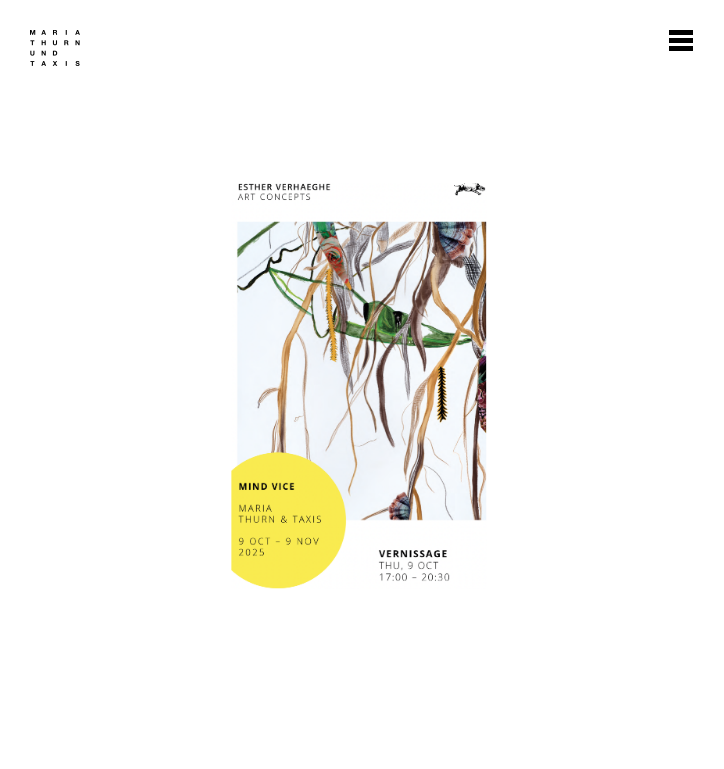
<svg xmlns="http://www.w3.org/2000/svg" width="724" height="769">
	<rect width="100%" height="100%" fill="#FFFFFF" />
	<image x="30" y="30" width="50" height="36" href="assets/img1.png" />
	<image x="669" y="30" width="24" height="21" href="assets/img2.png" />
	<image x="231" y="183" width="256" height="406" href="assets/img3.png" />
</svg>
